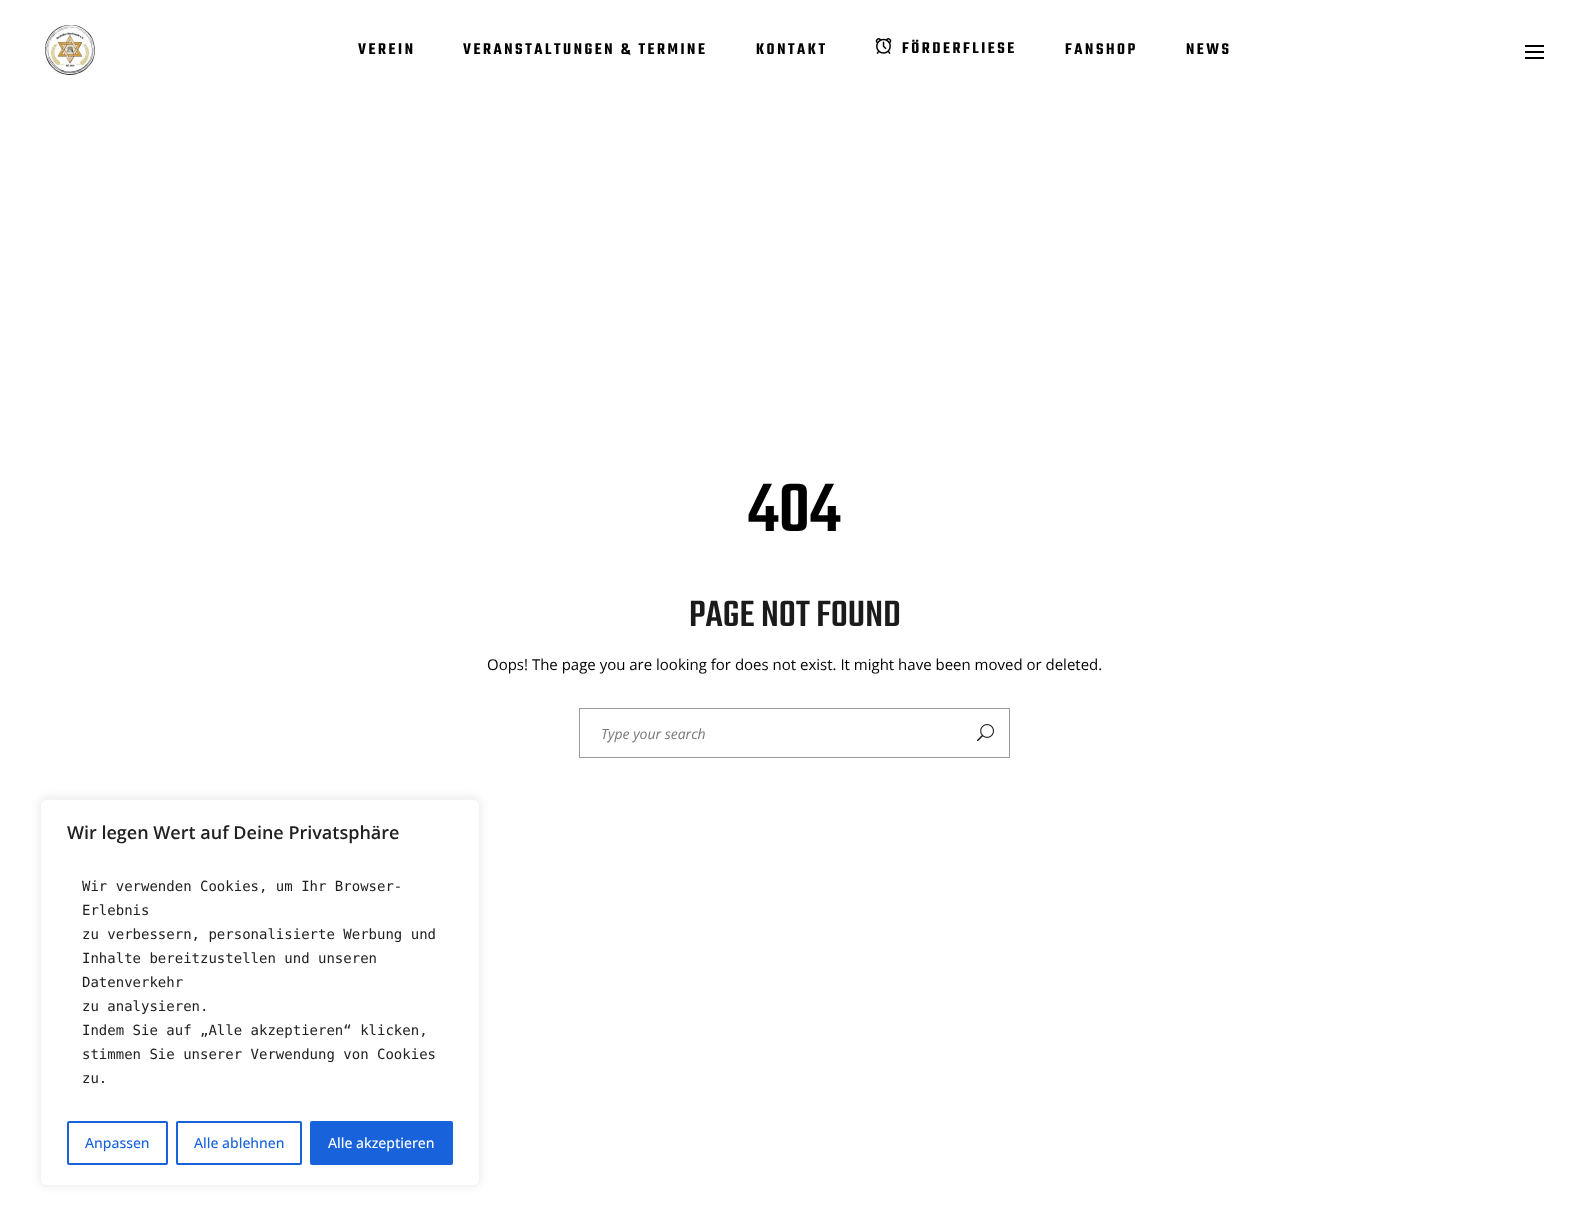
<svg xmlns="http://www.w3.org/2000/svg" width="1589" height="1226">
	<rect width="100%" height="100%" fill="#FFFFFF" />
	<image x="45" y="25" width="50" height="50" href="assets/img1.png" />
	<g font-family="Teko" font-size="17" font-weight="600" letter-spacing="2.55" fill="#000000">
		<text x="358" y="54">VEREIN</text>
		<text x="463" y="54">VERANSTALTUNGEN &amp; TERMINE</text>
		<text x="756" y="54">KONTAKT</text>
	</g>
	<image x="875" y="38" width="17" height="16" href="assets/img2.png" />
	<g font-family="Teko" font-size="17" font-weight="600" letter-spacing="2.55" fill="#000000">
		<text x="902" y="53">FÖRDERFLIESE</text>
		<text x="1065" y="54">FANSHOP</text>
		<text x="1186" y="54">NEWS</text>
	</g>
	<rect x="1525" y="45" width="19" height="2" fill="#000000" />
	<rect x="1525" y="51" width="19" height="2" fill="#000000" />
	<rect x="1525" y="57" width="19" height="2" fill="#000000" />
	<text x="748" y="531" font-family="Teko" font-size="75" font-weight="500" fill="#000000">404</text>
	<text x="689" y="626" font-family="Teko" font-size="40" font-weight="500" fill="#1B1B1B">PAGE NOT FOUND</text>
	<text x="487" y="670" font-family="Open Sans" font-size="15" fill="#000000">Oops! The page you are looking for does not exist. It might have been moved or deleted.</text>
	<rect x="579.5" y="708.5" width="430" height="49" fill="none" stroke="#9D9A96" />
	<text x="601" y="739" font-family="Open Sans" font-size="14" font-style="italic" fill="#777777">Type your search</text>
	<image x="977" y="724" width="17" height="18" href="assets/img3.png" />
	<rect x="40" y="798" width="440" height="387" rx="6" fill="#ACABAB" fill-opacity="0.3" filter="blur(5px)" />
	<rect x="40.5" y="799.5" width="439" height="386" rx="5.5" fill="#FFFFFF" stroke="#F4F4F4" />
	<text x="67" y="839" font-family="Open Sans" font-size="18" font-weight="600" fill="#212121">Wir legen Wert auf Deine Privatsphäre</text>
	<g font-family="DejaVu Sans Mono" font-size="14" fill="#212121">
		<text x="82" y="891">Wir verwenden Cookies, um Ihr Browser-</text>
		<text x="82" y="915">Erlebnis</text>
		<text x="82" y="939">zu verbessern, personalisierte Werbung und</text>
		<text x="82" y="963">Inhalte bereitzustellen und unseren</text>
		<text x="82" y="987">Datenverkehr</text>
		<text x="82" y="1011">zu analysieren.</text>
		<text x="82" y="1035">Indem Sie auf „Alle akzeptieren“ klicken,</text>
		<text x="82" y="1059">stimmen Sie unserer Verwendung von Cookies</text>
		<text x="82" y="1083">zu.</text>
	</g>
	<rect x="68" y="1122" width="99" height="42" rx="1" fill="none" stroke="#1863DC" stroke-width="2" />
	<text x="85" y="1148" font-family="Open Sans" font-size="14" font-weight="500" fill="#1863DC">Anpassen</text>
	<rect x="177" y="1122" width="124" height="42" rx="1" fill="none" stroke="#1863DC" stroke-width="2" />
	<text x="194" y="1148" font-family="Open Sans" font-size="14" font-weight="500" fill="#1863DC">Alle ablehnen</text>
	<rect x="311" y="1122" width="141" height="42" rx="1" fill="#1863DC" stroke="#1863DC" stroke-width="2" />
	<text x="328" y="1148" font-family="Open Sans" font-size="14" font-weight="500" fill="#FFFFFF">Alle akzeptieren</text>
</svg>
